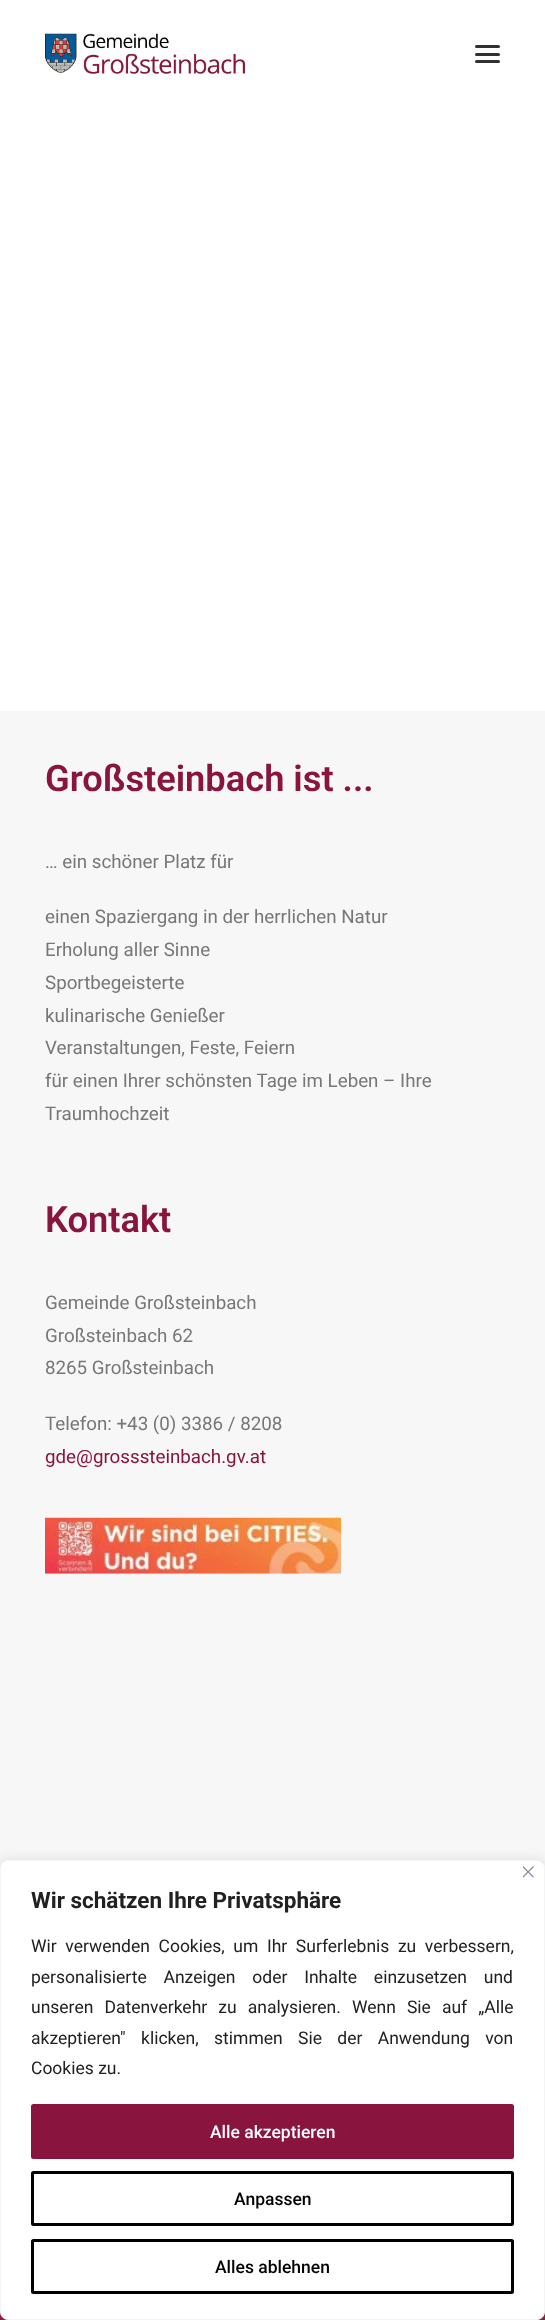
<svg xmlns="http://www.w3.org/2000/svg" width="545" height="2320">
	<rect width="100%" height="100%" fill="#F7F7F7" />
	<rect x="0" y="0" width="545" height="711" fill="#FFFFFF" />
	<image x="45" y="33" width="200" height="41" href="assets/img1.png" />
	<rect x="475" y="53" width="25" height="3" rx="1.5" fill="#303133" />
	<rect x="475" y="45" width="25" height="3" rx="1.5" fill="#303133" />
	<rect x="475" y="60" width="25" height="3" rx="1.5" fill="#303133" />
	<text x="45" y="791" font-family="Roboto" font-size="36.25" font-weight="600" fill="#89143D">Großsteinbach ist ...</text>
	<g font-family="Roboto" font-size="18.75" fill="#777777">
		<text x="45" y="868">… ein schöner Platz für</text>
		<text x="45" y="923">einen Spaziergang in der herrlichen Natur</text>
		<text x="45" y="956">Erholung aller Sinne</text>
		<text x="45" y="989">Sportbegeisterte</text>
		<text x="45" y="1022">kulinarische Genießer</text>
		<text x="45" y="1054">Veranstaltungen, Feste, Feiern</text>
		<text x="45" y="1087">für einen Ihrer schönsten Tage im Leben – Ihre</text>
		<text x="45" y="1120">Traumhochzeit</text>
	</g>
	<text x="45" y="1232" font-family="Roboto" font-size="36.25" font-weight="600" fill="#89143D">Kontakt</text>
	<g font-family="Roboto" font-size="18.75" fill="#777777">
		<text x="45" y="1309">Gemeinde Großsteinbach</text>
		<text x="45" y="1342">Großsteinbach 62</text>
		<text x="45" y="1374">8265 Großsteinbach</text>
		<text x="45" y="1430">Telefon: +43 (0) 3386 / 8208</text>
	</g>
	<text x="45" y="1463" font-family="Roboto" font-size="18.75" fill="#89143D">gde@grosssteinbach.gv.at</text>
	<image x="45" y="1517" width="297" height="57" href="assets/img2.png" />
	<rect x="0" y="2312" width="545" height="8" fill="#89143D" />
	<rect x="0" y="1859" width="545" height="460" rx="8" fill="#ACABAB" fill-opacity="0.3" filter="blur(6px)" />
	<rect x="0.5" y="1860.5" width="544" height="459" rx="7.5" fill="#FFFFFF" stroke="#F4F4F4" />
	<image x="523" y="1866" width="11" height="12" href="assets/img3.png" />
	<text x="31" y="1908" font-family="Roboto" font-size="22.5" font-weight="700" fill="#212121">Wir schätzen Ihre Privatsphäre</text>
	<g font-family="Roboto" font-size="17.5" fill="#212121">
		<text x="31" y="1952" word-spacing="4.25">Wir verwenden Cookies, um Ihr Surferlebnis zu verbessern,</text>
		<text x="31" y="1983" word-spacing="12.5">personalisierte Anzeigen oder Inhalte einzusetzen und</text>
		<text x="31" y="2013" word-spacing="6.75">unseren Datenverkehr zu analysieren. Wenn Sie auf „Alle</text>
		<text x="31" y="2044" word-spacing="11">akzeptieren" klicken, stimmen Sie der Anwendung von</text>
		<text x="31" y="2074">Cookies zu.</text>
	</g>
	<rect x="32.5" y="2105.5" width="480" height="52" rx="1" fill="#89143D" stroke="#89143D" stroke-width="3" />
	<text x="210" y="2138" font-family="Roboto" font-size="17.5" font-weight="500" fill="#FFFFFF">Alle akzeptieren</text>
	<rect x="32.5" y="2172.5" width="480" height="52" rx="1" fill="none" stroke="#000000" stroke-width="3" />
	<text x="234" y="2205" font-family="Roboto" font-size="17.5" font-weight="500" fill="#000000">Anpassen</text>
	<rect x="32.5" y="2240.5" width="480" height="52" rx="1" fill="none" stroke="#000000" stroke-width="3" />
	<text x="215" y="2273" font-family="Roboto" font-size="17.5" font-weight="500" fill="#000000">Alles ablehnen</text>
</svg>
